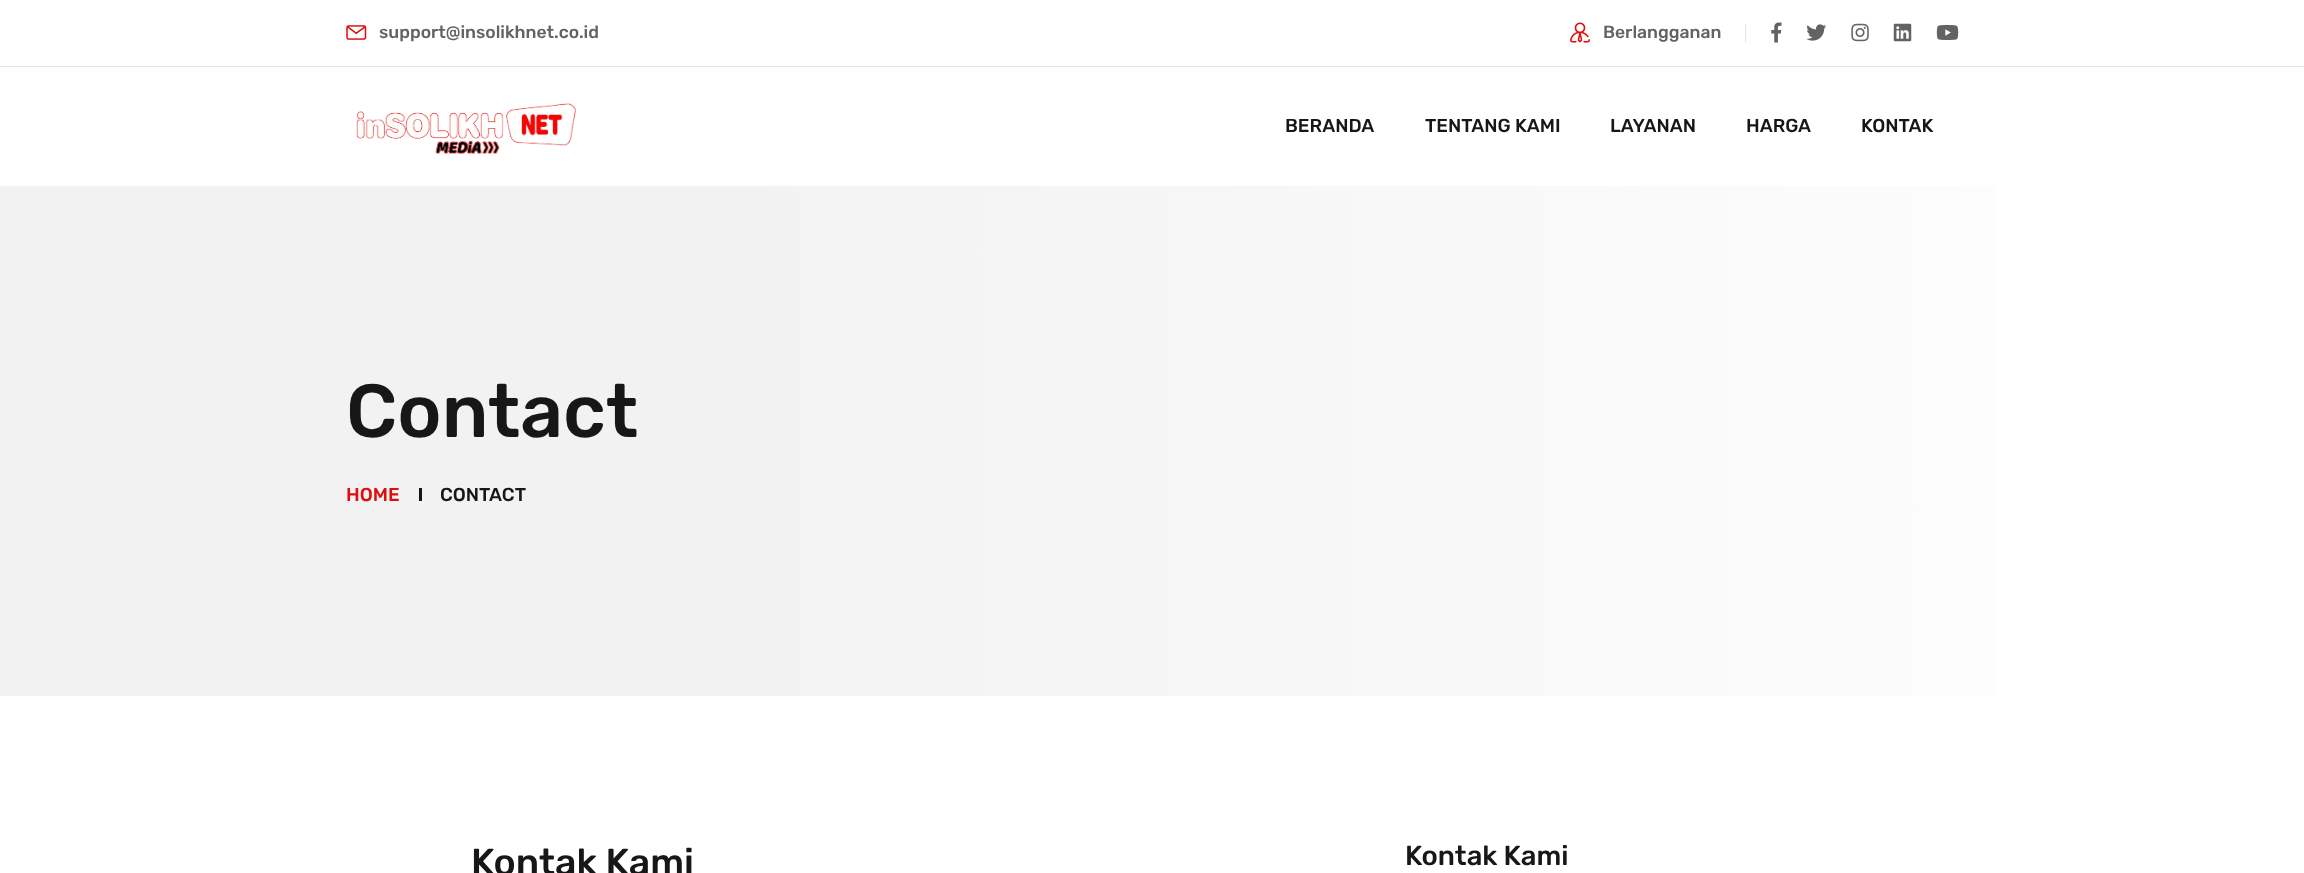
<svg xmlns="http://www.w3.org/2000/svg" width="2304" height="873">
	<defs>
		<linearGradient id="g1" gradientUnits="userSpaceOnUse" x1="0" y1="441" x2="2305" y2="441"><stop offset="0" stop-color="#F2F2F2" /><stop offset="0.3" stop-color="#F2F2F2" /><stop offset="1" stop-color="#FFFFFF" /></linearGradient>
	</defs>
	<rect width="100%" height="100%" fill="#FFFFFF" />
	<rect x="0" y="66" width="2304" height="1" fill="#E1E6EE" />
	<image x="346" y="25" width="21" height="15" href="assets/img1.png" />
	<text x="379" y="38" font-family="Rubik" font-size="17.5" font-weight="500" fill="#636363">support@insolikhnet.co.id</text>
	<image x="1570" y="22" width="20" height="21" href="assets/img2.png" />
	<text x="1603" y="38" font-family="Rubik" font-size="17.5" font-weight="500" fill="#636363">Berlangganan</text>
	<rect x="1745" y="24" width="1" height="19" fill="#E1E6EE" />
	<image x="1771" y="22" width="11" height="21" href="assets/img3.png" />
	<image x="1806" y="24" width="21" height="17" href="assets/img4.png" />
	<image x="1851" y="23" width="18" height="19" href="assets/img5.png" />
	<image x="1893" y="23" width="19" height="19" href="assets/img6.png" />
	<image x="1936" y="25" width="23" height="15" href="assets/img7.png" />
	<image x="356" y="103" width="220" height="52" href="assets/img8.png" />
	<g font-family="Rubik" font-size="18.75" font-weight="500" fill="#171717">
		<text x="1285" y="132">BERANDA</text>
		<text x="1425" y="132">TENTANG KAMI</text>
		<text x="1610" y="132">LAYANAN</text>
		<text x="1746" y="132">HARGA</text>
		<text x="1861" y="132">KONTAK</text>
	</g>
	<rect x="0" y="186" width="1995" height="510" fill="url(#g1)" />
	<text x="346" y="437" font-family="Rubik" font-size="75" font-weight="500" fill="#171717">Contact</text>
	<text x="346" y="501" font-family="Rubik" font-size="18.75" font-weight="500" fill="#DF0E0E">HOME</text>
	<rect x="419" y="488" width="3" height="13" fill="#171717" />
	<text x="440" y="501" font-family="Rubik" font-size="18.75" font-weight="500" fill="#171717">CONTACT</text>
	<text x="471" y="875" font-family="Rubik" font-size="37.5" font-weight="500" fill="#171717">Kontak Kami</text>
	<text x="1405" y="865" font-family="Rubik" font-size="27.5" font-weight="500" fill="#171717">Kontak Kami</text>
</svg>
